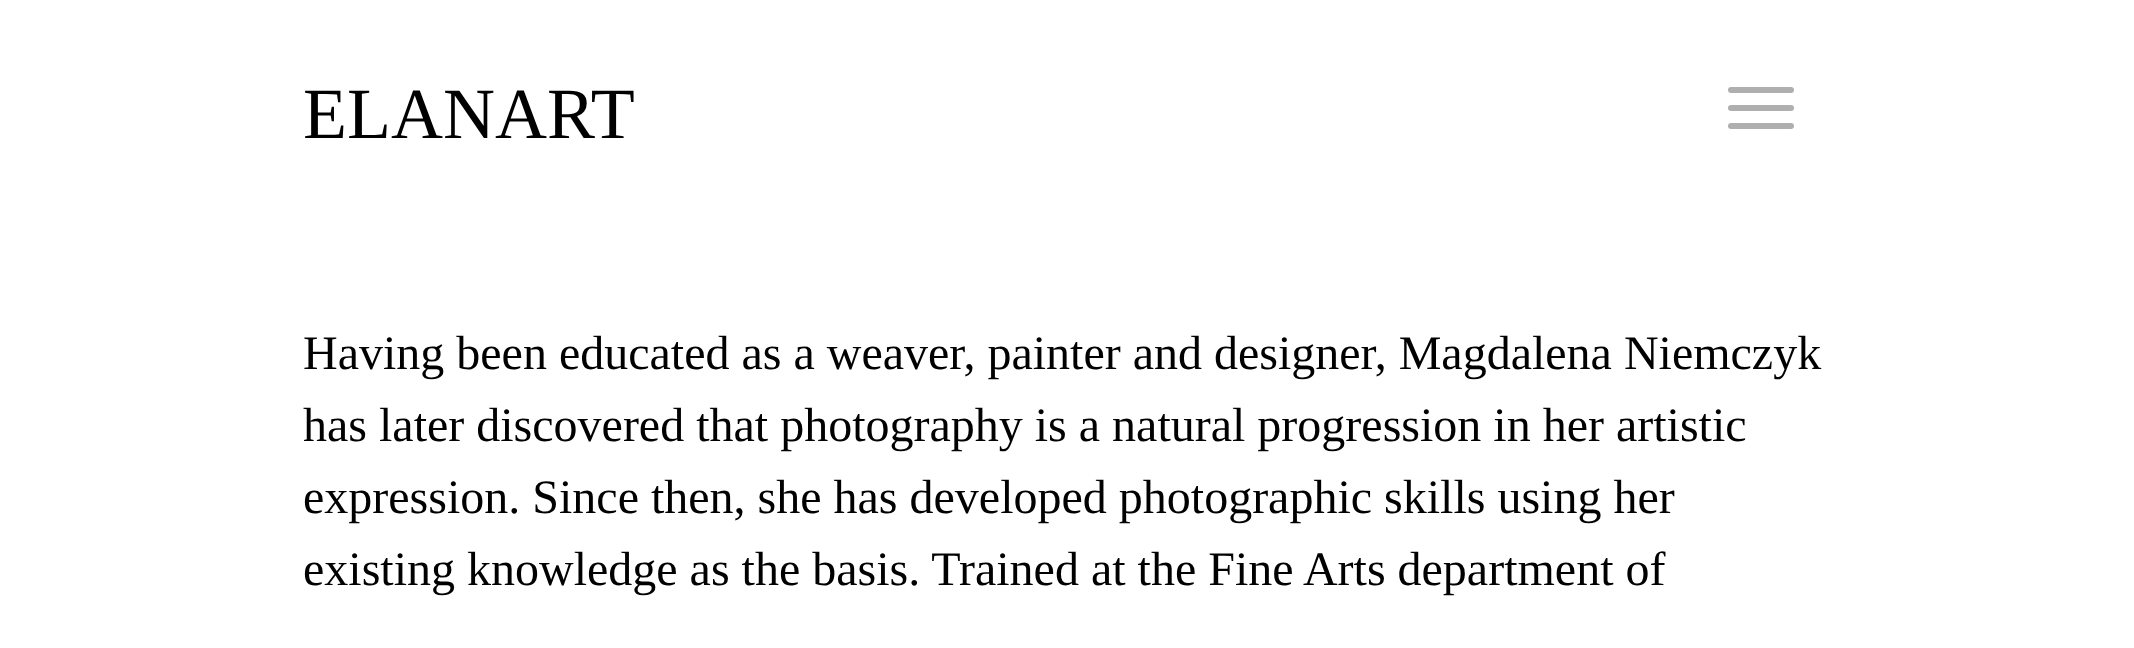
<svg xmlns="http://www.w3.org/2000/svg" width="2134" height="648">
	<rect width="100%" height="100%" fill="#FFFFFF" />
	<text x="303" y="138" font-family="Liberation Serif" font-size="72" fill="#000000">ELANART</text>
	<rect x="1728" y="87" width="66" height="6" rx="3" fill="#AFAFAF" />
	<rect x="1728" y="105" width="66" height="6" rx="3" fill="#AFAFAF" />
	<rect x="1728" y="123" width="66" height="6" rx="3" fill="#AFAFAF" />
	<g font-family="Liberation Serif" font-size="48" fill="#000000">
		<text x="303" y="369">Having been educated as a weaver, painter and designer, Magdalena Niemczyk</text>
		<text x="303" y="441">has later discovered that photography is a natural progression in her artistic</text>
		<text x="303" y="513">expression. Since then, she has developed photographic skills using her</text>
		<text x="303" y="585">existing knowledge as the basis. Trained at the Fine Arts department of</text>
	</g>
</svg>
